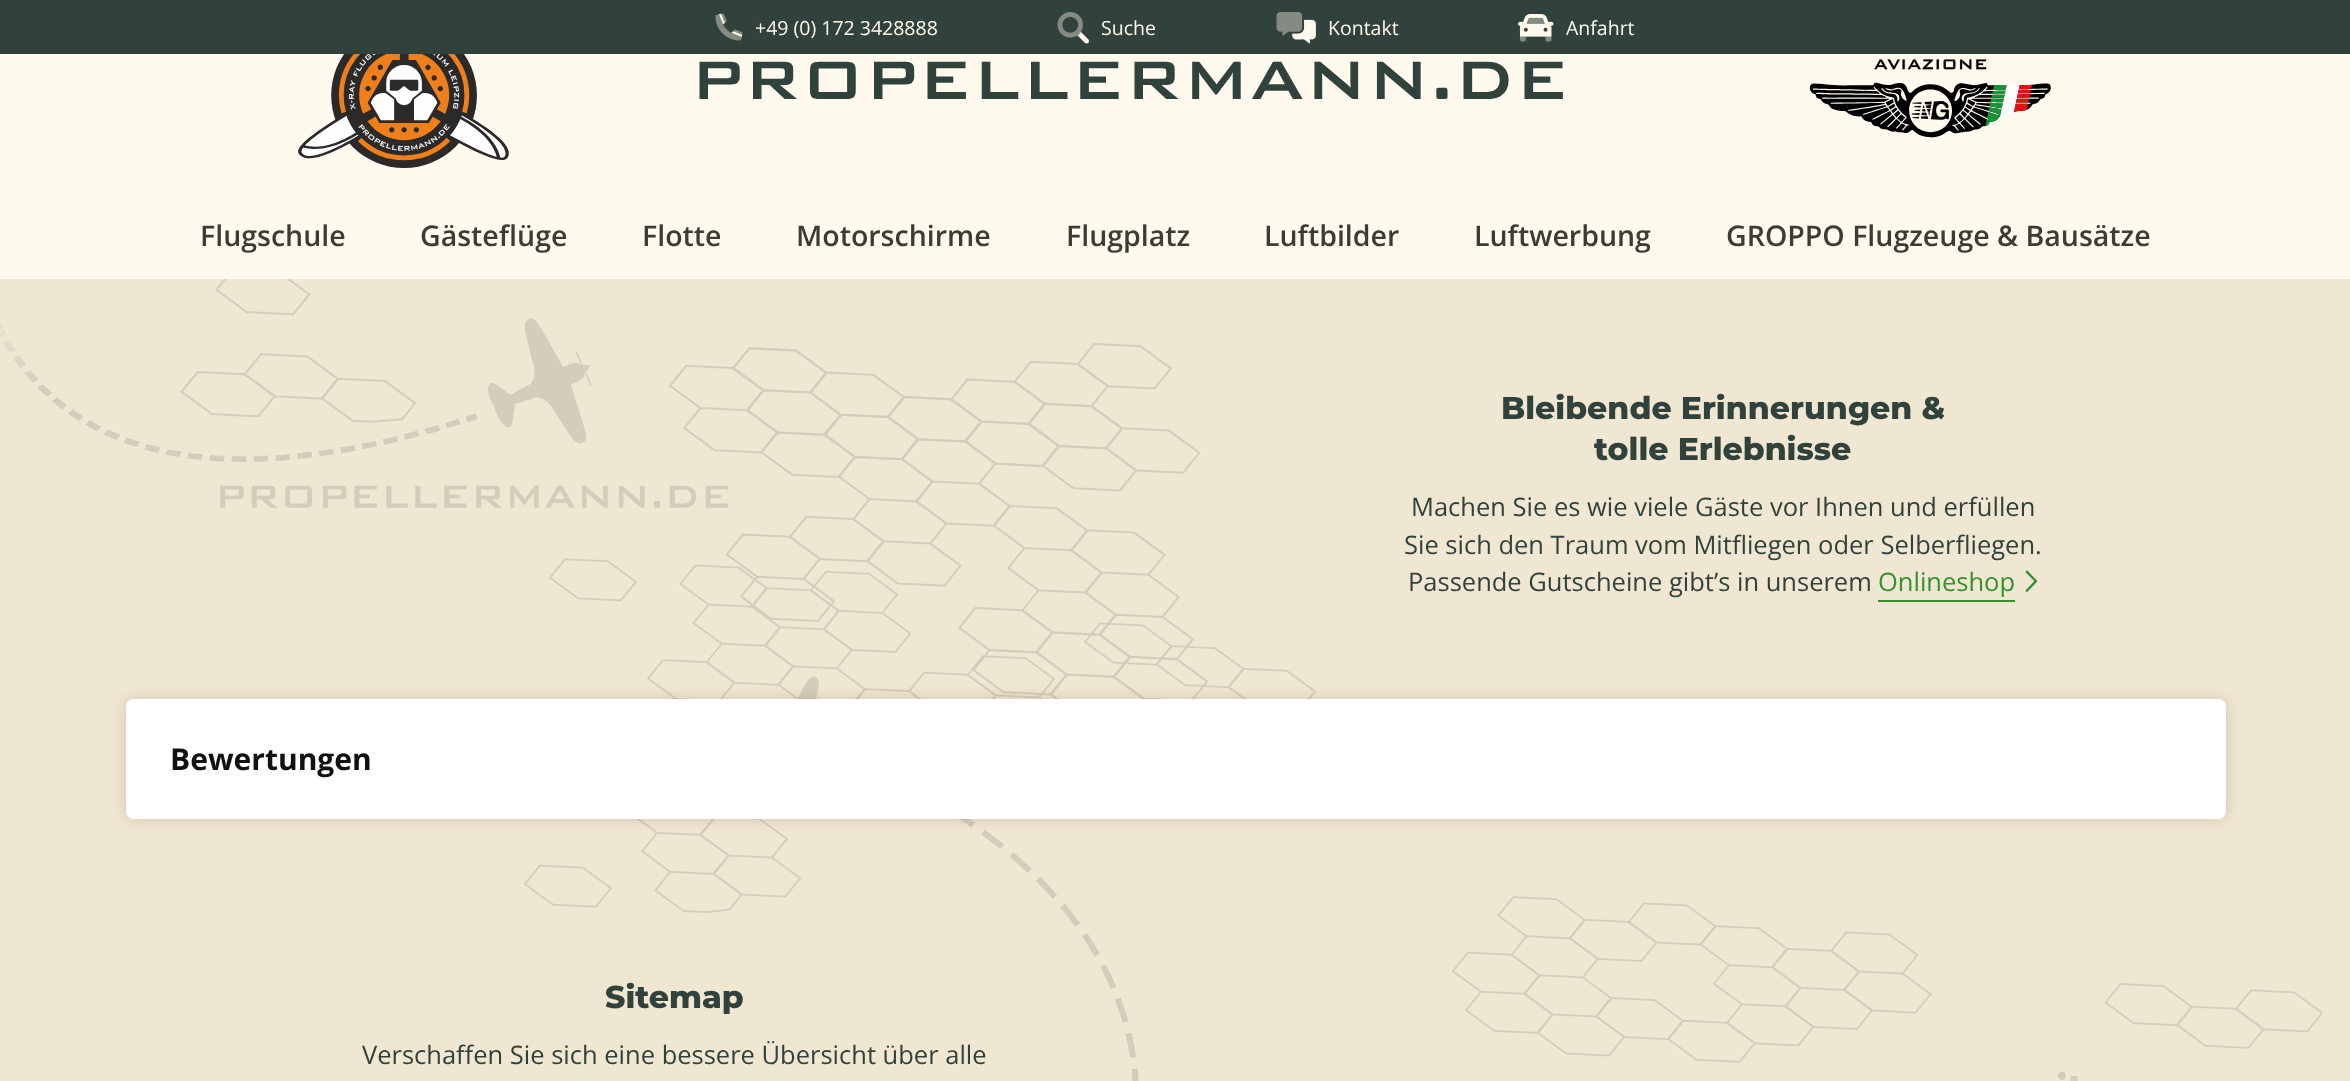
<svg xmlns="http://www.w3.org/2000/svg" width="2350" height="1081">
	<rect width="100%" height="100%" fill="#FFFAED" />
	<rect x="0" y="0" width="2350" height="54" fill="#31423C" />
	<image x="715" y="13" width="28" height="28" href="assets/img1.png" />
	<text x="755" y="35" font-family="Open Sans" font-size="19.5" fill="#FFFAED">+49 (0) 172 3428888</text>
	<image x="1057" y="12" width="32" height="32" href="assets/img2.png" />
	<text x="1101" y="35" font-family="Open Sans" font-size="19.5" fill="#FFFAED">Suche</text>
	<image x="1276" y="12" width="40" height="32" href="assets/img3.png" />
	<text x="1328" y="35" font-family="Open Sans" font-size="19.5" fill="#FFFAED">Kontakt</text>
	<image x="1518" y="14" width="36" height="28" href="assets/img4.png" />
	<text x="1566" y="35" font-family="Open Sans" font-size="19.5" fill="#FFFAED">Anfahrt</text>
	<image x="298" y="54" width="211" height="114" href="assets/img5.png" />
	<text x="690" y="99" font-family="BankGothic" font-size="72" font-weight="700" fill="#31423C">PROPELLERMANN.DE</text>
	<image x="1809" y="59" width="242" height="79" href="assets/img6.png" />
	<g font-family="Open Sans" font-size="28.5" font-weight="600" fill="#3D3B35">
		<text x="200" y="246">Flugschule</text>
		<text x="420" y="246">Gästeflüge</text>
		<text x="642" y="246">Flotte</text>
		<text x="796" y="246">Motorschirme</text>
		<text x="1066" y="246">Flugplatz</text>
		<text x="1264" y="246">Luftbilder</text>
		<text x="1474" y="246">Luftwerbung</text>
		<text x="1726" y="246">GROPPO Flugzeuge &amp; Bausätze</text>
	</g>
	<rect x="0" y="279" width="2350" height="802" fill="#F0E7D3" />
	<image x="0" y="279" width="1208" height="420" href="assets/img7.png" />
	<g font-family="Montserrat" font-size="31.5" font-weight="800" fill="#31423C">
		<text x="1501" y="419">Bleibende Erinnerungen &amp;</text>
		<text x="1594" y="460">tolle Erlebnisse</text>
	</g>
	<g font-family="Open Sans" font-size="25.5" fill="#31423C">
		<text x="1411" y="516">Machen Sie es wie viele Gäste vor Ihnen und erfüllen</text>
		<text x="1404" y="554">Sie sich den Traum vom Mitfliegen oder Selberfliegen.</text>
		<text x="1408" y="591">Passende Gutscheine gibt’s in unserem</text>
	</g>
	<text x="1878" y="591" font-family="Open Sans" font-size="25.5" fill="#34912C">Onlineshop</text>
	<rect x="1878" y="600" width="137" height="2" fill="#34912C" />
	<image x="2025" y="570" width="13" height="22" href="assets/img8.png" />
	<image x="524" y="558" width="1798" height="523" href="assets/img9.png" />
	<rect x="126" y="699" width="2100" height="120" rx="8" fill="#633F01" fill-opacity="0.2" filter="blur(7.5px)" />
	<rect x="126" y="699" width="2100" height="120" rx="8" fill="#FFFFFF" />
	<text x="170" y="770" font-family="Open Sans" font-size="30" font-weight="700" fill="#111111">Bewertungen</text>
	<text x="605" y="1008" font-family="Montserrat" font-size="31.5" font-weight="800" fill="#31423C">Sitemap</text>
	<text x="362" y="1064" font-family="Open Sans" font-size="25.5" fill="#31423C">Verschaffen Sie sich eine bessere Übersicht über alle</text>
</svg>
